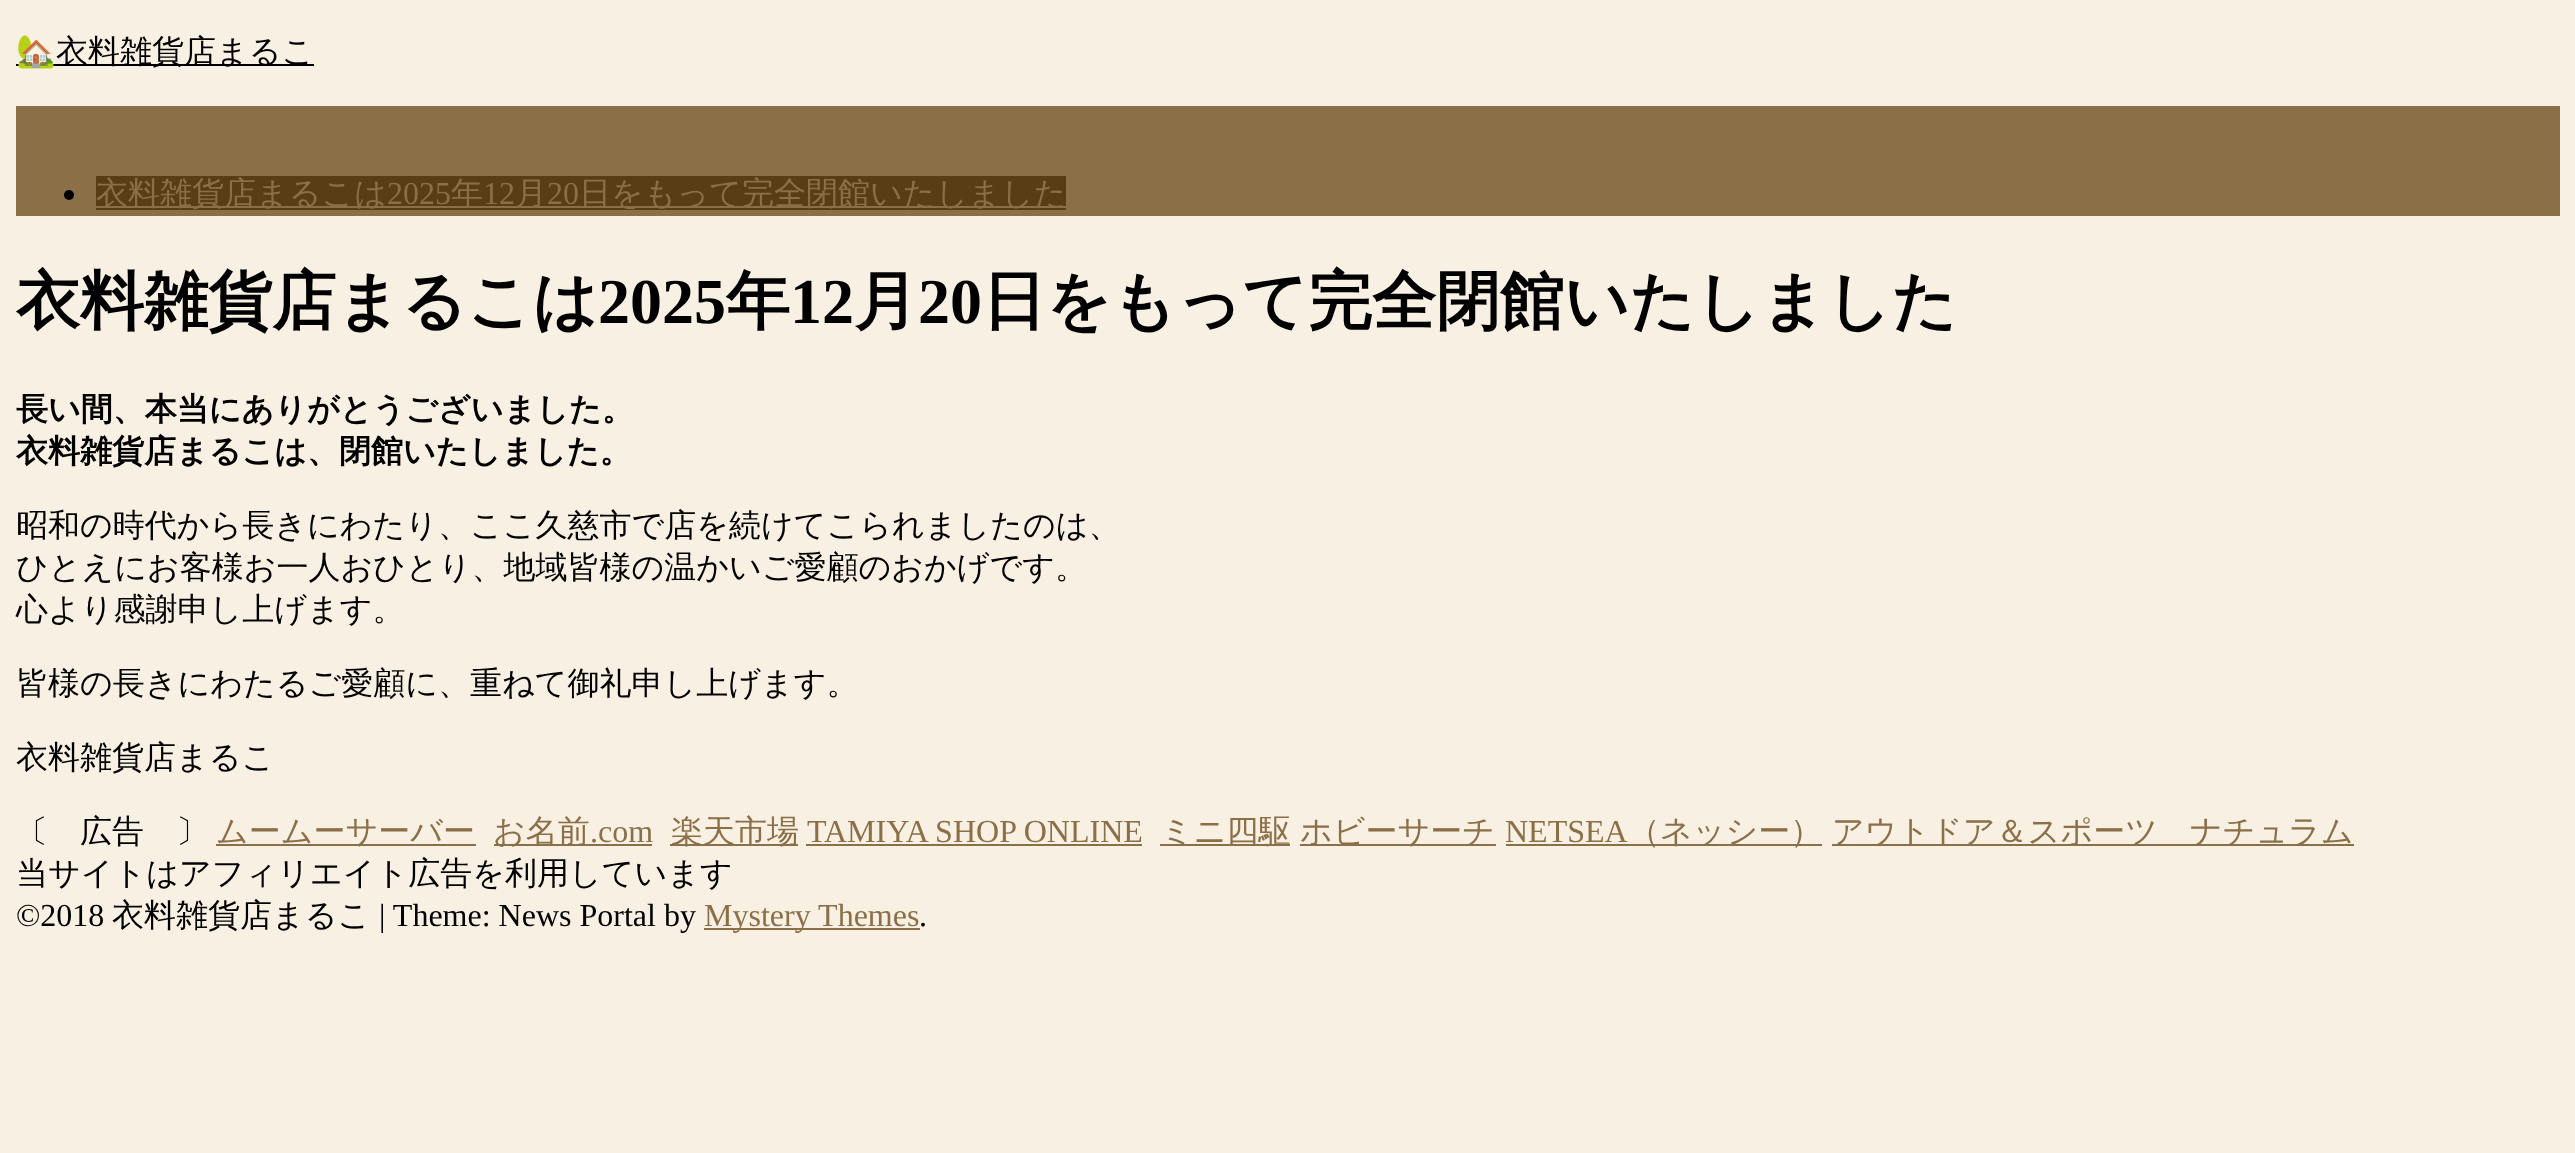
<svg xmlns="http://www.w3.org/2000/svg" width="2575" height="1153">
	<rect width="100%" height="100%" fill="#F8F0E3" />
	<rect x="16" y="64" width="298" height="2" fill="#000000" />
	<text x="16" y="62" font-family="Noto Color Emoji" font-size="32" fill="#000000">🏡</text>
	<text x="56" y="62" font-family="WenQuanYi Zen Hei" font-size="32" font-weight="500" fill="#000000">衣料雑貨店まるこ</text>
	<rect x="16" y="106" width="2544" height="110" fill="#8B6F47" />
	<circle cx="69" cy="195" r="5" fill="#000000" />
	<rect x="96" y="176" width="970" height="34" fill="#593D15" />
	<rect x="96" y="206" width="970" height="2" fill="#8B6F47" />
	<text x="96" y="204" font-family="WenQuanYi Zen Hei" font-size="32" font-weight="500" fill="#8B6F47">衣料雑貨店まるこは</text>
	<text x="387" y="204" font-family="Liberation Serif" font-size="32" fill="#8B6F47">2025</text>
	<text x="451" y="204" font-family="WenQuanYi Zen Hei" font-size="32" font-weight="500" fill="#8B6F47">年</text>
	<text x="483" y="204" font-family="Liberation Serif" font-size="32" fill="#8B6F47">12</text>
	<text x="515" y="204" font-family="WenQuanYi Zen Hei" font-size="32" font-weight="500" fill="#8B6F47">月</text>
	<text x="547" y="204" font-family="Liberation Serif" font-size="32" fill="#8B6F47">20</text>
	<text x="579" y="204" font-family="WenQuanYi Zen Hei" font-size="32" font-weight="500" fill="#8B6F47">日をもって完全閉館いたしました</text>
	<text x="16" y="323" font-family="WenQuanYi Zen Hei" font-size="64" font-weight="700" fill="#000000">衣料雑貨店まるこは</text>
	<text x="598" y="323" font-family="Liberation Serif" font-size="64" font-weight="700" fill="#000000">2025</text>
	<text x="726" y="323" font-family="WenQuanYi Zen Hei" font-size="64" font-weight="700" fill="#000000">年</text>
	<text x="790" y="323" font-family="Liberation Serif" font-size="64" font-weight="700" fill="#000000">12</text>
	<text x="854" y="323" font-family="WenQuanYi Zen Hei" font-size="64" font-weight="700" fill="#000000">月</text>
	<text x="918" y="323" font-family="Liberation Serif" font-size="64" font-weight="700" fill="#000000">20</text>
	<text x="982" y="323" font-family="WenQuanYi Zen Hei" font-size="64" font-weight="700" fill="#000000">日をもって完全閉館いたしました</text>
	<g font-family="WenQuanYi Zen Hei" font-size="32" font-weight="700" fill="#000000">
		<text x="16" y="420">長い間、本当にありがとうございました。</text>
		<text x="16" y="462">衣料雑貨店まるこは、閉館いたしました。</text>
	</g>
	<g font-family="WenQuanYi Zen Hei" font-size="32" font-weight="500" fill="#000000">
		<text x="16" y="536">昭和の時代から長きにわたり、ここ久慈市で店を続けてこられましたのは、</text>
		<text x="16" y="578">ひとえにお客様お一人おひとり、地域皆様の温かいご愛顧のおかげです。</text>
		<text x="16" y="620">心より感謝申し上げます。</text>
		<text x="16" y="694">皆様の長きにわたるご愛顧に、重ねて御礼申し上げます。</text>
		<text x="16" y="768">衣料雑貨店まるこ</text>
		<text x="16" y="842">〔　広告　〕</text>
	</g>
	<rect x="216" y="844" width="260" height="2" fill="#8B6F47" />
	<text x="216" y="842" font-family="WenQuanYi Zen Hei" font-size="32" font-weight="500" fill="#8B6F47">ムームーサーバー</text>
	<rect x="494" y="844" width="158" height="2" fill="#8B6F47" />
	<text x="493" y="842" font-family="WenQuanYi Zen Hei" font-size="32" font-weight="500" fill="#8B6F47">お名前</text>
	<text x="590" y="842" font-family="Liberation Serif" font-size="32" fill="#8B6F47">.com</text>
	<rect x="670" y="844" width="128" height="2" fill="#8B6F47" />
	<text x="671" y="842" font-family="WenQuanYi Zen Hei" font-size="32" font-weight="500" fill="#8B6F47">楽天市場</text>
	<text x="807" y="842" font-family="Liberation Serif" font-size="32" fill="#8B6F47">TAMIYA SHOP ONLINE</text>
	<rect x="806" y="844" width="336" height="2" fill="#8B6F47" />
	<rect x="1160" y="844" width="130" height="2" fill="#8B6F47" />
	<text x="1161" y="842" font-family="WenQuanYi Zen Hei" font-size="32" font-weight="500" fill="#8B6F47">ミニ四駆</text>
	<rect x="1300" y="844" width="196" height="2" fill="#8B6F47" />
	<text x="1300" y="842" font-family="WenQuanYi Zen Hei" font-size="32" font-weight="500" fill="#8B6F47">ホビーサーチ</text>
	<text x="1505" y="842" font-family="Liberation Serif" font-size="32" fill="#8B6F47">NETSEA</text>
	<rect x="1506" y="844" width="316" height="2" fill="#8B6F47" />
	<text x="1628" y="842" font-family="WenQuanYi Zen Hei" font-size="32" font-weight="500" fill="#8B6F47">（ネッシー）</text>
	<rect x="1832" y="844" width="522" height="2" fill="#8B6F47" />
	<text x="1832" y="842" font-family="WenQuanYi Zen Hei" font-size="32" font-weight="500" fill="#8B6F47">アウトドア＆スポーツ　ナチュラム</text>
	<text x="16" y="884" font-family="WenQuanYi Zen Hei" font-size="32" font-weight="500" fill="#000000">当サイトはアフィリエイト広告を利用しています</text>
	<text x="16" y="926" font-family="Liberation Serif" font-size="32" fill="#000000">©2018</text>
	<text x="112" y="926" font-family="WenQuanYi Zen Hei" font-size="32" font-weight="500" fill="#000000">衣料雑貨店まるこ</text>
	<text x="379" y="926" font-family="Liberation Serif" font-size="32" fill="#000000">| Theme: News Portal by</text>
	<rect x="704" y="928" width="216" height="2" fill="#8B6F47" />
	<text x="704" y="926" font-family="Liberation Serif" font-size="32" fill="#8B6F47">Mystery Themes</text>
	<text x="919" y="926" font-family="Liberation Serif" font-size="32" fill="#000000">.</text>
</svg>
